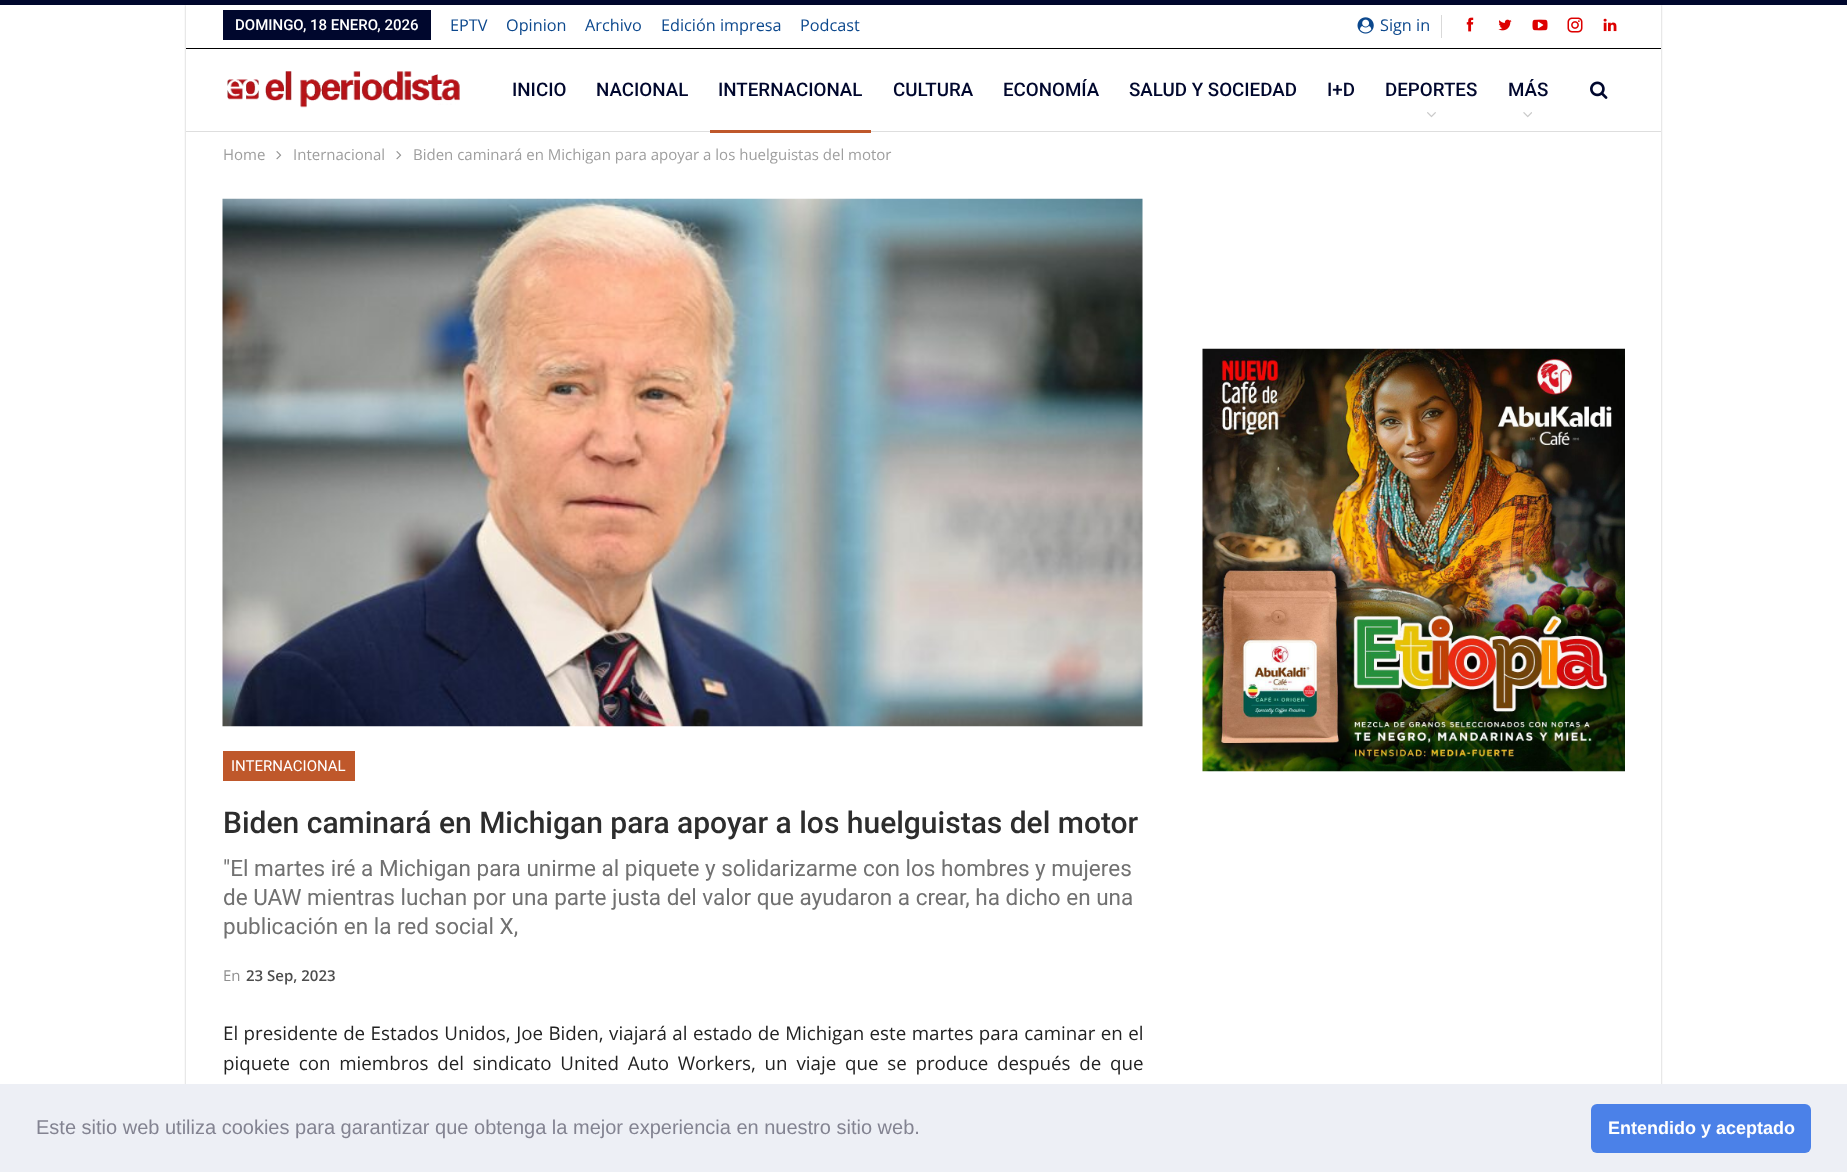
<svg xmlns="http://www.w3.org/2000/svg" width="1847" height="1172">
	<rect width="100%" height="100%" fill="#FFFFFF" />
	<rect x="0" y="0" width="1847" height="5" fill="#00072D" />
	<rect x="186" y="5" width="1475" height="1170" fill="#000000" fill-opacity="0.27" filter="blur(1px)" />
	<rect x="186" y="5" width="1475" height="1079" fill="#FFFFFF" />
	<rect x="186" y="131" width="1475" height="1" fill="#DEDEDE" />
	<rect x="186" y="48" width="1475" height="1" fill="#000000" />
	<rect x="223" y="10" width="208" height="30" fill="#00072D" />
	<text x="235" y="30" font-family="Roboto" font-size="15" font-weight="500" fill="#FFFFFF">DOMINGO, 18 ENERO, 2026</text>
	<g font-family="Open Sans" font-size="16.25" fill="#0C488D">
		<text x="450" y="31">EPTV</text>
		<text x="506" y="31">Opinion</text>
		<text x="585" y="31">Archivo</text>
		<text x="661" y="31">Edición impresa</text>
		<text x="800" y="31">Podcast</text>
	</g>
	<image x="1357" y="17" width="17" height="17" href="assets/img1.png" />
	<text x="1380" y="31" font-family="Open Sans" font-size="16.25" fill="#0C488D">Sign in</text>
	<rect x="1441" y="15" width="1" height="23" fill="#D9D9D9" />
	<image x="1466" y="17" width="8" height="15" href="assets/img2.png" />
	<image x="1498" y="19" width="14" height="12" href="assets/img3.png" />
	<image x="1532" y="19" width="16" height="12" href="assets/img4.png" />
	<image x="1567" y="17" width="16" height="16" href="assets/img5.png" />
	<image x="1603" y="18" width="14" height="14" href="assets/img6.png" />
	<image x="227" y="71" width="233" height="37" href="assets/img7.png" />
	<g font-family="Roboto" font-size="18.75" font-weight="500" fill="#00072D">
		<text x="512" y="96">INICIO</text>
		<text x="596" y="96">NACIONAL</text>
		<text x="718" y="96">INTERNACIONAL</text>
	</g>
	<rect x="710" y="130" width="161" height="3" fill="#BF582B" />
	<g font-family="Roboto" font-size="18.75" font-weight="500" fill="#00072D">
		<text x="893" y="96">CULTURA</text>
		<text x="1003" y="96">ECONOMÍA</text>
		<text x="1129" y="96">SALUD Y SOCIEDAD</text>
		<text x="1327" y="96">I+D</text>
		<text x="1385" y="96">DEPORTES</text>
	</g>
	<image x="1427" y="112" width="9" height="6" href="assets/img8.png" />
	<text x="1508" y="96" font-family="Roboto" font-size="18.75" font-weight="500" fill="#00072D">MÁS</text>
	<image x="1523" y="112" width="9" height="6" href="assets/img9.png" />
	<image x="1590" y="81" width="18" height="18" href="assets/img10.png" />
	<text x="223" y="160" font-family="Open Sans" font-size="15" fill="#9E9E9E">Home</text>
	<image x="276" y="151" width="6" height="9" href="assets/img11.png" />
	<text x="293" y="160" font-family="Open Sans" font-size="15" fill="#9E9E9E">Internacional</text>
	<image x="396" y="151" width="6" height="9" href="assets/img11.png" />
	<text x="413" y="160" font-family="Open Sans" font-size="15" fill="#9E9E9E">Biden caminará en Michigan para apoyar a los huelguistas del motor</text>
	<image x="1202" y="348" width="423" height="424" href="assets/img12.png" />
	<image x="222" y="198" width="921" height="529" href="assets/img13.png" />
	<rect x="223" y="751" width="132" height="30" fill="#BF582B" />
	<text x="231" y="771" font-family="Roboto" font-size="15" fill="#FFFFFF">INTERNACIONAL</text>
	<text x="223" y="833" font-family="Roboto" font-size="30" font-weight="500" fill="#2D2D2D">Biden caminará en Michigan para apoyar a los huelguistas del motor</text>
	<g font-family="Roboto" font-size="22.5" fill="#717171">
		<text x="223" y="876">"El martes iré a Michigan para unirme al piquete y solidarizarme con los hombres y mujeres</text>
		<text x="223" y="905">de UAW mientras luchan por una parte justa del valor que ayudaron a crear, ha dicho en una</text>
		<text x="223" y="934">publicación en la red social X,</text>
	</g>
	<text x="223" y="981" font-family="Open Sans" font-size="15" fill="#8F8F8F">En</text>
	<text x="246" y="981" font-family="Open Sans" font-size="15" font-weight="600" fill="#4D4D4D">23 Sep, 2023</text>
	<g font-family="Open Sans" font-size="18.75" fill="#222222">
		<text x="223" y="1040" word-spacing="0.6">El presidente de Estados Unidos, Joe Biden, viajará al estado de Michigan este martes para caminar en el</text>
		<text x="223" y="1070" word-spacing="3.9">piquete con miembros del sindicato United Auto Workers, un viaje que se produce después de que</text>
	</g>
	<rect x="0" y="1084" width="1847" height="88" fill="#EDEFF5" />
	<text x="36" y="1134" font-family="Liberation Sans" font-size="20" fill="#838391">Este sitio web utiliza cookies para garantizar que obtenga la mejor experiencia en nuestro sitio web.</text>
	<rect x="1591" y="1104" width="220" height="49" rx="6" fill="#4B81E8" />
	<text x="1608" y="1134" font-family="Liberation Sans" font-size="18" font-weight="700" fill="#FFFFFF">Entendido y aceptado</text>
</svg>
